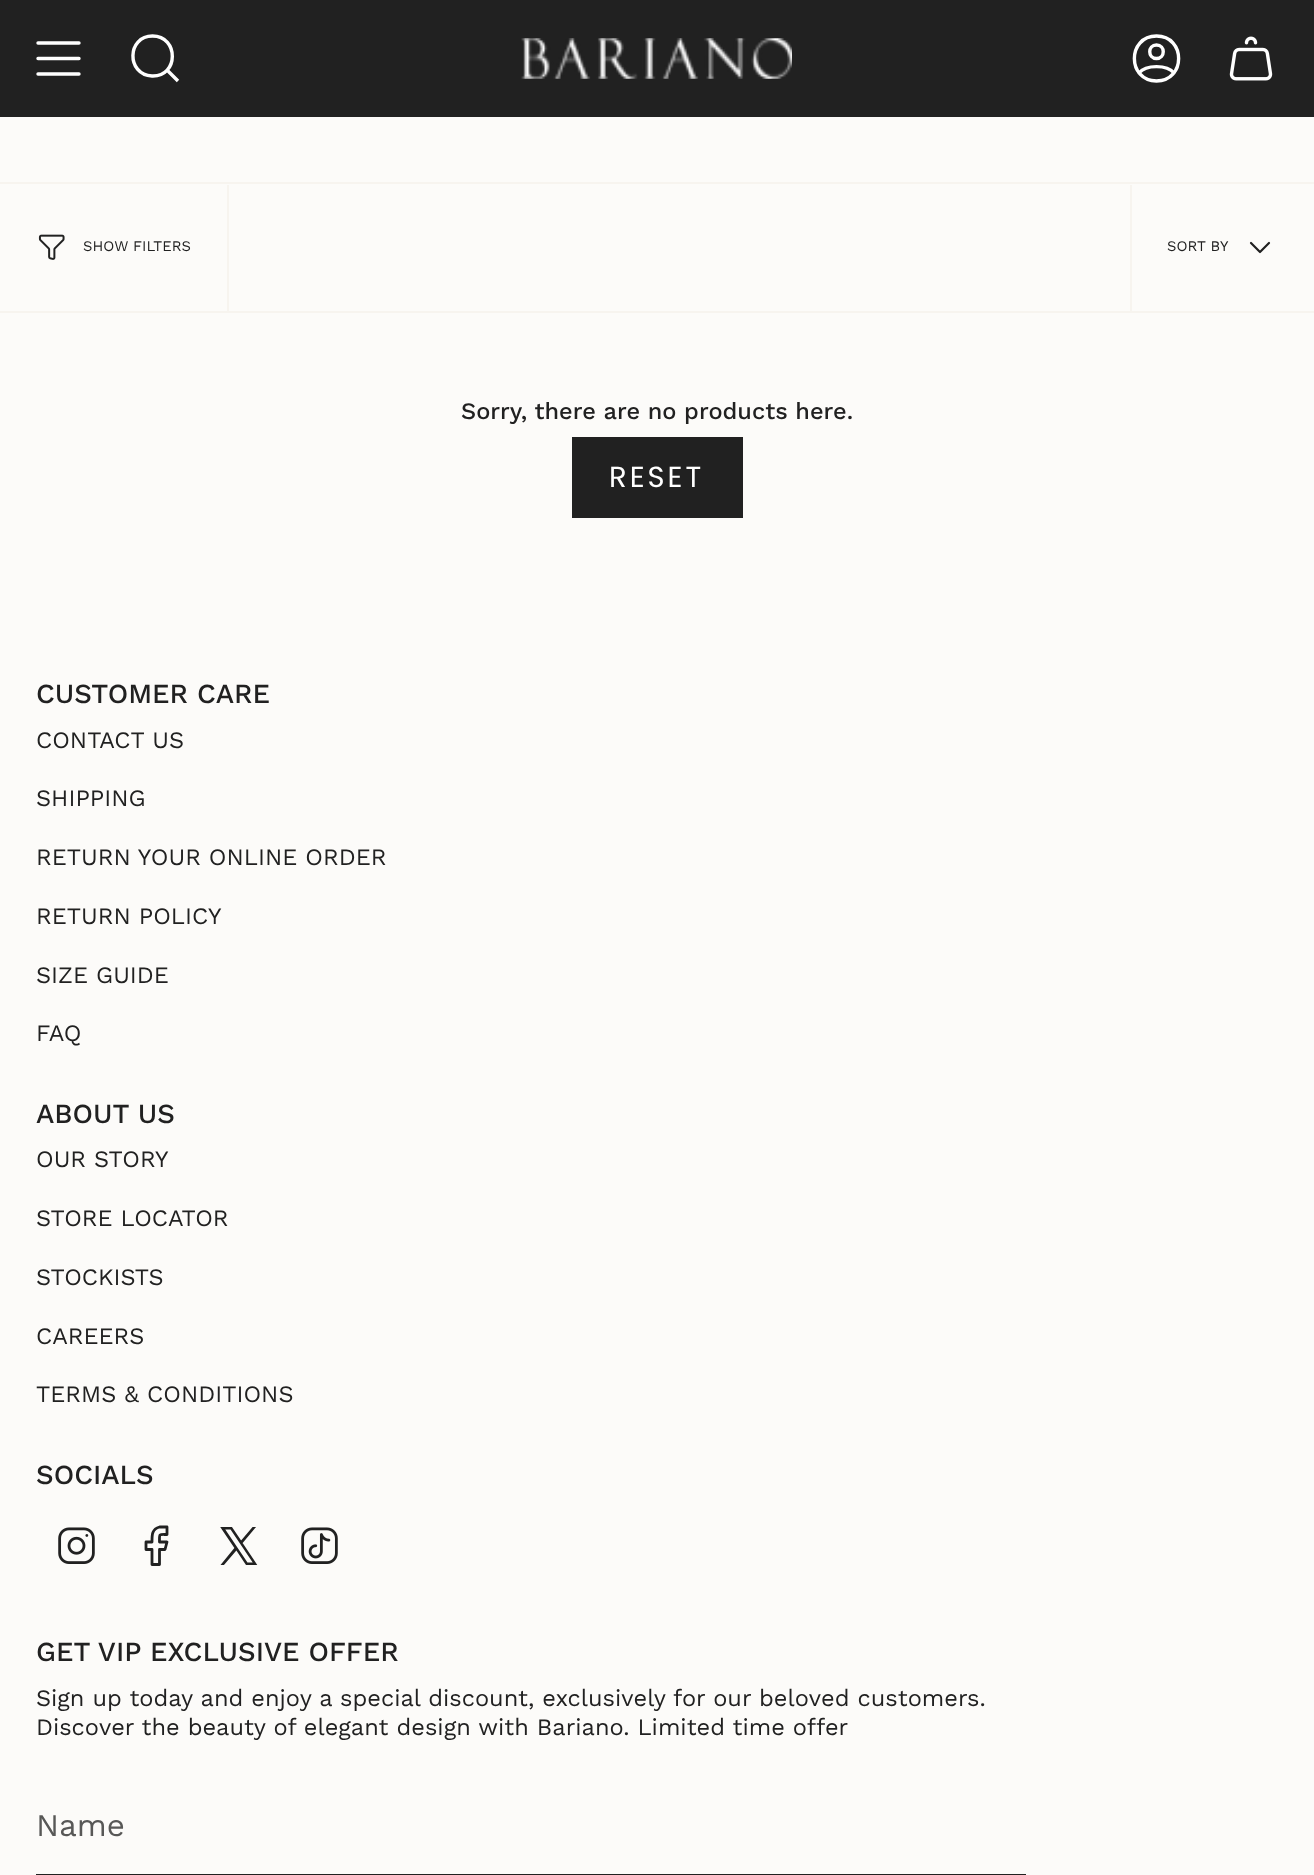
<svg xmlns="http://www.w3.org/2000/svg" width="1314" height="1875">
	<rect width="100%" height="100%" fill="#FCFBF9" />
	<rect x="0" y="0" width="1314" height="117" fill="#212121" />
	<path d="M38 43H79M38 58.5H79M38 74H79" fill="none" stroke="#FFFFFF" stroke-width="3.4" stroke-linecap="round" stroke-linejoin="round" />
	<path d="M152.5 36C179 36 179 77 152 76C126 74.5 127 36 152.5 36ZM167 70L178 81" fill="none" stroke="#FFFFFF" stroke-width="3.4" />
	<image x="521" y="38" width="271" height="41" href="assets/img1.png" />
	<path d="M1156.5 36C1127 36 1127 81 1156.5 81C1186 81 1186 36 1156.5 36ZM1139 73C1146 64.5 1167 64.5 1174 73M1156.5 58.5C1165.5 58.5 1165.5 45 1156.5 45C1147.5 45 1147.5 58.5 1156.5 58.5Z" fill="none" stroke="#FFFFFF" stroke-width="3.4" stroke-linecap="round" stroke-linejoin="round" />
	<image x="1229" y="36" width="44" height="45" href="assets/img2.png" />
	<rect x="0" y="182" width="1314" height="2" fill="#F7F4EF" />
	<rect x="0" y="311" width="1314" height="2" fill="#F7F4EF" />
	<rect x="227" y="185" width="2" height="126" fill="#F7F4EF" />
	<image x="38" y="234" width="27" height="26" href="assets/img3.png" />
	<text x="83" y="251" font-family="Work Sans" font-size="14.75" fill="#212121">SHOW FILTERS</text>
	<rect x="1130" y="185" width="2" height="126" fill="#F7F4EF" />
	<text x="1167" y="251" font-family="Work Sans" font-size="14.75" fill="#212121">SORT BY</text>
	<path d="M1251 243L1260 252L1269 243" fill="none" stroke="#212121" stroke-width="2.2" stroke-linecap="round" stroke-linejoin="round" />
	<text x="461" y="419" font-family="Work Sans" font-size="23.6" font-weight="500" fill="#212121">Sorry, there are no products here.</text>
	<rect x="572" y="437" width="171" height="81" fill="#212121" />
	<text x="609" y="487" font-family="Poppins" font-size="29" letter-spacing="3" fill="#FFFFFF">RESET</text>
	<text x="36" y="703" font-family="Work Sans" font-size="27.5" font-weight="500" fill="#212121">CUSTOMER CARE</text>
	<g font-family="Work Sans" font-size="23.6" fill="#212121">
		<text x="36" y="748">CONTACT US</text>
		<text x="36" y="806">SHIPPING</text>
		<text x="36" y="865">RETURN YOUR ONLINE ORDER</text>
		<text x="36" y="924">RETURN POLICY</text>
		<text x="36" y="983">SIZE GUIDE</text>
		<text x="36" y="1041">FAQ</text>
	</g>
	<text x="36" y="1123" font-family="Work Sans" font-size="27.5" font-weight="500" fill="#212121">ABOUT US</text>
	<g font-family="Work Sans" font-size="23.6" fill="#212121">
		<text x="36" y="1167">OUR STORY</text>
		<text x="36" y="1226">STORE LOCATOR</text>
		<text x="36" y="1285">STOCKISTS</text>
		<text x="36" y="1344">CAREERS</text>
		<text x="36" y="1402">TERMS &amp; CONDITIONS</text>
	</g>
	<text x="36" y="1484" font-family="Work Sans" font-size="27.5" font-weight="500" fill="#212121">SOCIALS</text>
	<image x="58" y="1527" width="37" height="37" href="assets/img4.png" />
	<path d="M167 1527H159.5C151.5 1529 152 1536 152 1542H146V1549.5H152V1564.5H159.5V1549.5H165L167 1542H159.5C159.5 1533.5 158.5 1534.5 167 1534.5Z" fill="none" stroke="#212121" stroke-width="2.8" stroke-linecap="round" stroke-linejoin="round" />
	<path d="M231.5 1528L241 1542L253 1528H254L241.5 1543L255.5 1564H246.5L236.5 1549L223.5 1564H222.5L235.5 1548L222 1528ZM231 1528.5H223.5L247 1563.5H254.5Z" fill="none" stroke="#212121" stroke-width="1.9" />
	<image x="301" y="1527" width="37" height="37" href="assets/img5.png" />
	<text x="36" y="1661" font-family="Work Sans" font-size="27.5" font-weight="500" fill="#212121">GET VIP EXCLUSIVE OFFER</text>
	<g font-family="Work Sans" font-size="23.6" fill="#212121">
		<text x="36" y="1706">Sign up today and enjoy a special discount, exclusively for our beloved customers.</text>
		<text x="36" y="1735">Discover the beauty of elegant design with Bariano. Limited time offer</text>
	</g>
	<rect x="36" y="1874" width="990" height="1" fill="#212121" />
	<text x="36" y="1836" font-family="Work Sans" font-size="31.5" fill="#585857">Name</text>
</svg>
